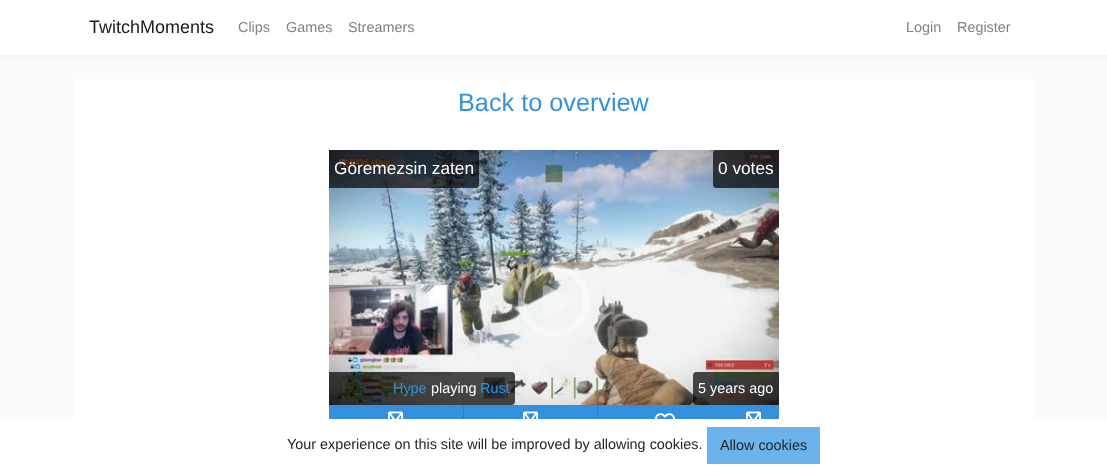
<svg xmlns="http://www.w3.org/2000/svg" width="1107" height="472">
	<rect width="100%" height="100%" fill="#F8FAFC" />
	<rect x="0" y="2" width="1107" height="55" fill="#000000" fill-opacity="0.04" filter="blur(2px)" />
	<rect x="0" y="0" width="1107" height="55" fill="#FFFFFF" />
	<text x="89" y="33" font-family="Liberation Sans" font-size="18" fill="#1A1A1A">TwitchMoments</text>
	<g font-family="Liberation Sans" font-size="14.4" fill="#808080">
		<text x="238" y="32">Clips</text>
		<text x="286" y="32">Games</text>
		<text x="348" y="32">Streamers</text>
		<text x="906" y="32">Login</text>
		<text x="957" y="32">Register</text>
	</g>
	<rect x="74" y="79" width="960" height="340" fill="#FFFFFF" />
	<text x="458" y="111" font-family="Liberation Sans" font-size="25.25" fill="#3490DC">Back to overview</text>
	<image x="329" y="150" width="450" height="255" href="assets/img1.png" />
	<path d="M329 150H476C477.5 150 479 151.5 479 153V185C479 186.5 477.5 188 476 188H329Z" fill="#000000" fill-opacity="0.7" />
	<text x="334" y="174" font-family="Liberation Sans" font-size="17.25" fill="#FFFFFF">Göremezsin zaten</text>
	<path d="M716 150H779V188H716C714.5 188 713 186.5 713 185V153C713 151.5 714.5 150 716 150Z" fill="#000000" fill-opacity="0.7" />
	<text x="718" y="174" font-family="Liberation Sans" font-size="17.25" fill="#FFFFFF">0 votes</text>
	<image x="518" y="265" width="72" height="72" href="assets/img2.png" />
	<path d="M329 372H512C513.5 372 515 373.5 515 375V402C515 403.5 513.5 405 512 405H329Z" fill="#000000" fill-opacity="0.7" />
	<text x="393" y="393" font-family="Liberation Sans" font-size="14.4" fill="#3490DC">Hype</text>
	<text x="431" y="393" font-family="Liberation Sans" font-size="14.4" fill="#FFFFFF">playing</text>
	<text x="480" y="393" font-family="Liberation Sans" font-size="14.4" fill="#3490DC">Rust</text>
	<path d="M696 372H779V405H696C694.5 405 693 403.5 693 402V375C693 373.5 694.5 372 696 372Z" fill="#000000" fill-opacity="0.7" />
	<text x="698" y="393" font-family="Liberation Sans" font-size="14.4" fill="#FFFFFF">5 years ago</text>
	<rect x="329" y="405" width="450" height="14" fill="#3490DC" />
	<image x="388" y="411" width="15" height="8" href="assets/img3.png" />
	<path d="M598 405V443L597 442V406Z" fill="#2E7EC1" />
	<path d="M463 443V405L464 406V442Z" fill="#2E7EC1" />
	<image x="523" y="411" width="15" height="8" href="assets/img3.png" />
	<image x="655" y="413" width="20" height="6" href="assets/img4.png" />
	<image x="746" y="411" width="15" height="8" href="assets/img3.png" />
	<rect x="0" y="419" width="1107" height="53" fill="#FFFFFF" />
	<text x="287" y="449" font-family="Liberation Sans" font-size="14.4" fill="#212529">Your experience on this site will be improved by allowing cookies.</text>
	<rect x="707" y="427" width="113" height="37" fill="#6CB2EB" />
	<text x="720" y="450" font-family="Liberation Sans" font-size="14.4" fill="#212529">Allow cookies</text>
</svg>
